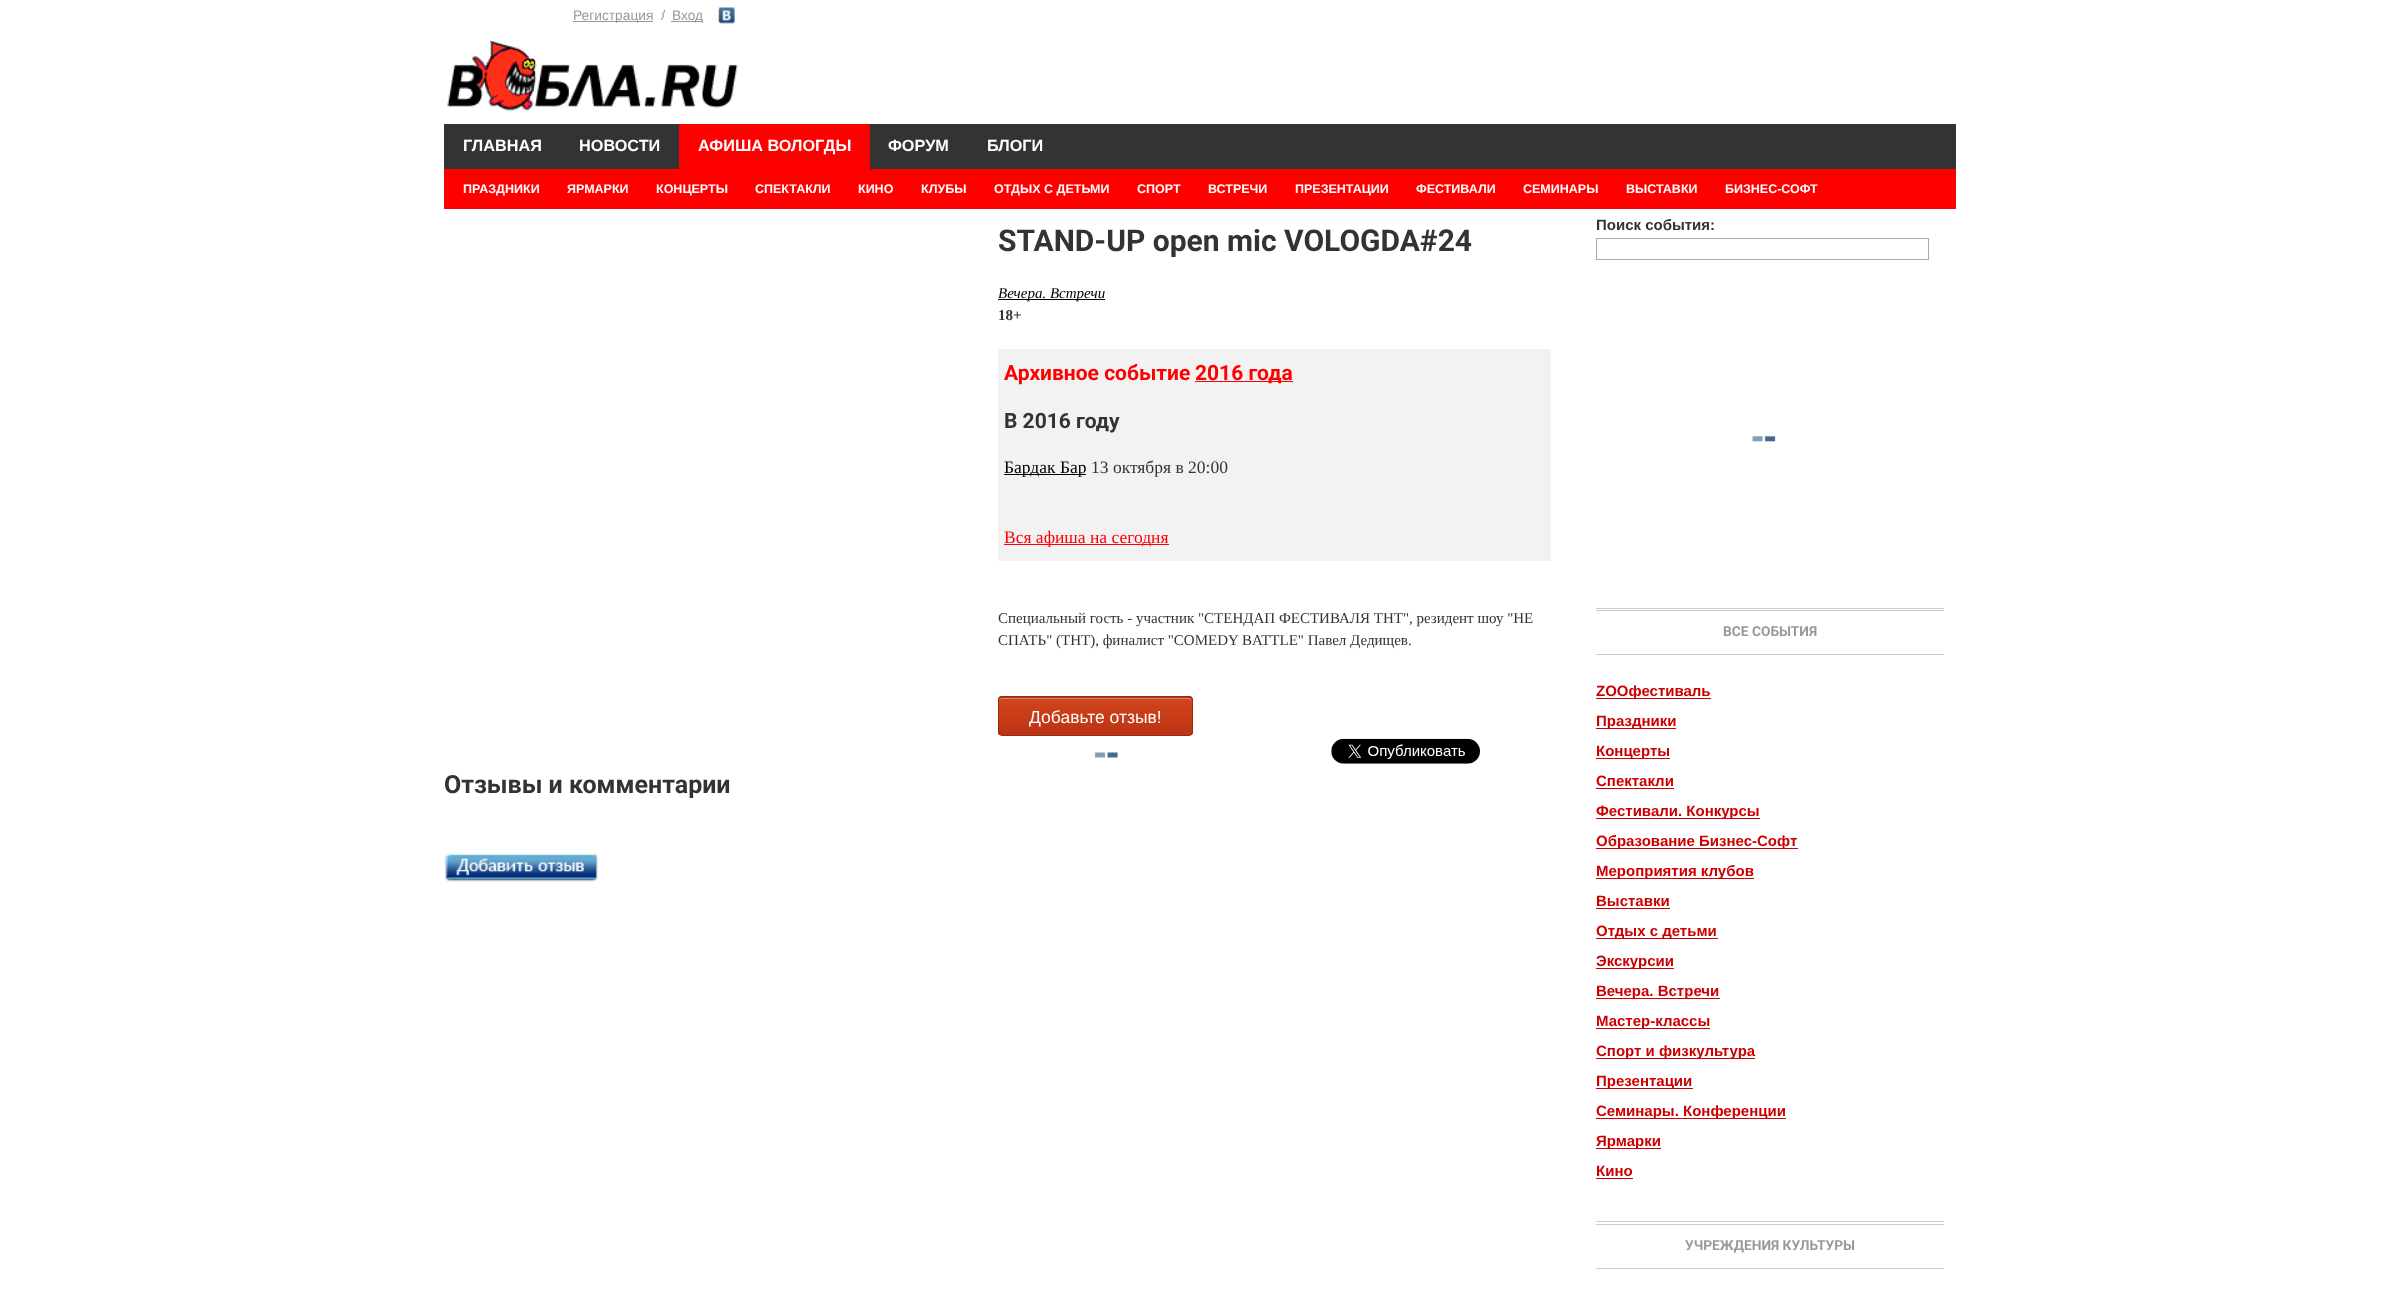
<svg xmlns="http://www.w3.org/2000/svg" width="2399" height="1295">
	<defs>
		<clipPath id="clip1"><rect x="998" y="696" width="195" height="40" rx="4" /></clipPath>
		<linearGradient id="g1" gradientUnits="userSpaceOnUse" x1="1095" y1="660" x2="1095" y2="698"><stop offset="0.05" stop-color="#D0451B" /><stop offset="1" stop-color="#BC3315" /></linearGradient>
		<linearGradient id="g2" gradientUnits="userSpaceOnUse" x1="1095" y1="698" x2="1095" y2="735"><stop offset="0.05" stop-color="#D0451B" /><stop offset="1" stop-color="#BC3315" /></linearGradient>
	</defs>
	<rect width="100%" height="100%" fill="#FFFFFF" />
	<rect x="573" y="21" width="80" height="1" fill="#999999" />
	<text x="573" y="20" font-family="Liberation Sans" font-size="13.75" fill="#999999">Регистрация</text>
	<image x="661" y="10" width="4" height="10" href="assets/img1.png" />
	<rect x="671" y="21" width="32" height="1" fill="#999999" />
	<text x="672" y="20" font-family="Liberation Sans" font-size="13.75" fill="#999999">Вход</text>
	<image x="718" y="7" width="17" height="17" href="assets/img2.png" />
	<image x="447" y="40" width="291" height="72" href="assets/img3.png" />
	<rect x="444" y="124" width="1512" height="45" fill="#333333" />
	<text x="463" y="151" font-family="Liberation Sans" font-size="16.25" font-weight="700" fill="#FFFFFF">ГЛАВНАЯ</text>
	<rect x="679" y="124" width="191" height="45" fill="#FF0000" />
	<text x="698" y="151" font-family="Liberation Sans" font-size="16.25" font-weight="700" fill="#FFFFFF">АФИША ВОЛОГДЫ</text>
	<rect x="444" y="169" width="1512" height="40" fill="#FF0000" />
	<g font-family="Liberation Sans" font-size="12.5" font-weight="700" fill="#FFFFFF">
		<text x="463" y="193">ПРАЗДНИКИ</text>
		<text x="567" y="193">ЯРМАРКИ</text>
		<text x="656" y="193">КОНЦЕРТЫ</text>
		<text x="755" y="193">СПЕКТАКЛИ</text>
		<text x="858" y="193">КИНО</text>
		<text x="921" y="193">КЛУБЫ</text>
		<text x="994" y="193">ОТДЫХ С ДЕТЬМИ</text>
		<text x="1137" y="193">СПОРТ</text>
		<text x="1208" y="193">ВСТРЕЧИ</text>
		<text x="1295" y="193">ПРЕЗЕНТАЦИИ</text>
		<text x="1416" y="193">ФЕСТИВАЛИ</text>
		<text x="1523" y="193">СЕМИНАРЫ</text>
		<text x="1626" y="193">ВЫСТАВКИ</text>
		<text x="1725" y="193">БИЗНЕС-СОФТ</text>
	</g>
	<g font-family="Liberation Sans" font-size="16.25" font-weight="700" fill="#FFFFFF">
		<text x="579" y="151">НОВОСТИ</text>
		<text x="888" y="151">ФОРУМ</text>
		<text x="987" y="151">БЛОГИ</text>
	</g>
	<text x="998" y="251" font-family="Roboto" font-size="30" font-weight="700" fill="#333333">STAND-UP open mic VOLOGDA#24</text>
	<rect x="998" y="299" width="107" height="1" fill="#000000" />
	<text x="998" y="298" font-family="Liberation Serif" font-size="15" font-style="italic" fill="#000000">Вечера. Встречи</text>
	<text x="998" y="320" font-family="Liberation Serif" font-size="15" font-weight="700" fill="#333333">18+</text>
	<rect x="998" y="349" width="553" height="212" fill="#F2F2F2" />
	<text x="1004" y="380" font-family="Roboto" font-size="21" font-weight="700" fill="#FF0000">Архивное событие</text>
	<rect x="1195" y="381" width="98" height="1" fill="#FF0000" />
	<text x="1195" y="380" font-family="Roboto" font-size="21" font-weight="700" fill="#FF0000">2016 года</text>
	<text x="1004" y="428" font-family="Roboto" font-size="21" font-weight="700" fill="#333333">В 2016 году</text>
	<rect x="1004" y="474" width="82" height="1" fill="#000000" />
	<text x="1004" y="473" font-family="Liberation Serif" font-size="17.5" fill="#000000">Бардак Бар</text>
	<text x="1091" y="473" font-family="Liberation Serif" font-size="17.5" fill="#333333">13 октября в 20:00</text>
	<rect x="1004" y="544" width="165" height="1" fill="#FF0000" />
	<text x="1004" y="543" font-family="Liberation Serif" font-size="17.5" fill="#FF0000">Вся афиша на сегодня</text>
	<g font-family="Liberation Serif" font-size="15" fill="#333333">
		<text x="998" y="623">Специальный гость - участник "СТЕНДАП ФЕСТИВАЛЯ ТНТ", резидент шоу "НЕ</text>
		<text x="998" y="645">СПАТЬ" (ТНТ), финалист "COMEDY BATTLE" Павел Дедищев.</text>
	</g>
	<g clip-path="url(#clip1)">
		<rect x="998" y="696" width="195" height="2" fill="url(#g1)" />
		<rect x="998" y="698" width="195" height="37" fill="url(#g2)" />
	</g>
	<path d="M1001 699H1189L1191 700V701V699L1189 698H1002C1000 698 999 699 999 701C999 700 1000 699 1001 699Z" fill="#CF866C" />
	<rect x="998.5" y="696.5" width="194" height="39" rx="3.5" fill="none" stroke="#942911" />
	<text x="1029" y="723" font-family="Liberation Sans" font-size="17.5" fill="#FFFFFF">Добавьте отзыв!</text>
	<image x="1094" y="752" width="24" height="6" href="assets/img4.png" />
	<image x="1331" y="738" width="149" height="26" href="assets/img5.png" />
	<text x="444" y="793" font-family="Roboto" font-size="25" font-weight="700" fill="#333333">Отзывы и комментарии</text>
	<image x="445" y="853" width="153" height="29" href="assets/img6.png" />
	<text x="1596" y="230" font-family="Liberation Sans" font-size="15" font-weight="700" fill="#333333">Поиск события:</text>
	<rect x="1596.5" y="238.5" width="332" height="21" fill="none" stroke="#AAAAAA" />
	<image x="1752" y="436" width="24" height="6" href="assets/img7.png" />
	<rect x="1596" y="608" width="348" height="1" fill="#CCCCCC" />
	<rect x="1596" y="610" width="348" height="1" fill="#CCCCCC" />
	<rect x="1596" y="654" width="348" height="1" fill="#CCCCCC" />
	<text x="1723" y="636" font-family="Roboto" font-size="13.75" font-weight="700" fill="#999999">ВСЕ СОБЫТИЯ</text>
	<rect x="1596" y="698" width="115" height="1" fill="#CC0000" />
	<text x="1596" y="696" font-family="Liberation Sans" font-size="15" font-weight="700" fill="#CC0000">ZOOфестиваль</text>
	<rect x="1596" y="728" width="80" height="1" fill="#CC0000" />
	<text x="1596" y="726" font-family="Liberation Sans" font-size="15" font-weight="700" fill="#CC0000">Праздники</text>
	<rect x="1596" y="758" width="74" height="1" fill="#CC0000" />
	<g font-family="Liberation Sans" font-size="15" font-weight="700" fill="#CC0000">
		<text x="1596" y="756">Концерты</text>
		<text x="1596" y="786">Спектакли</text>
	</g>
	<rect x="1596" y="788" width="78" height="1" fill="#CC0000" />
	<rect x="1596" y="818" width="164" height="1" fill="#CC0000" />
	<text x="1596" y="816" font-family="Liberation Sans" font-size="15" font-weight="700" fill="#CC0000">Фестивали. Конкурсы</text>
	<rect x="1596" y="848" width="202" height="1" fill="#CC0000" />
	<text x="1596" y="846" font-family="Liberation Sans" font-size="15" font-weight="700" fill="#CC0000">Образование Бизнес-Софт</text>
	<rect x="1596" y="878" width="158" height="1" fill="#CC0000" />
	<g font-family="Liberation Sans" font-size="15" font-weight="700" fill="#CC0000">
		<text x="1596" y="876">Мероприятия клубов</text>
		<text x="1596" y="906">Выставки</text>
	</g>
	<rect x="1596" y="908" width="74" height="1" fill="#CC0000" />
	<rect x="1596" y="938" width="122" height="1" fill="#CC0000" />
	<text x="1596" y="936" font-family="Liberation Sans" font-size="15" font-weight="700" fill="#CC0000">Отдых с детьми</text>
	<rect x="1596" y="968" width="78" height="1" fill="#CC0000" />
	<text x="1596" y="966" font-family="Liberation Sans" font-size="15" font-weight="700" fill="#CC0000">Экскурсии</text>
	<rect x="1596" y="998" width="124" height="1" fill="#CC0000" />
	<text x="1596" y="996" font-family="Liberation Sans" font-size="15" font-weight="700" fill="#CC0000">Вечера. Встречи</text>
	<rect x="1596" y="1028" width="114" height="1" fill="#CC0000" />
	<text x="1596" y="1026" font-family="Liberation Sans" font-size="15" font-weight="700" fill="#CC0000">Мастер-классы</text>
	<rect x="1596" y="1058" width="159" height="1" fill="#CC0000" />
	<text x="1596" y="1056" font-family="Liberation Sans" font-size="15" font-weight="700" fill="#CC0000">Спорт и физкультура</text>
	<rect x="1596" y="1088" width="97" height="1" fill="#CC0000" />
	<text x="1596" y="1086" font-family="Liberation Sans" font-size="15" font-weight="700" fill="#CC0000">Презентации</text>
	<rect x="1596" y="1118" width="190" height="1" fill="#CC0000" />
	<text x="1596" y="1116" font-family="Liberation Sans" font-size="15" font-weight="700" fill="#CC0000">Семинары. Конференции</text>
	<rect x="1596" y="1148" width="65" height="1" fill="#CC0000" />
	<g font-family="Liberation Sans" font-size="15" font-weight="700" fill="#CC0000">
		<text x="1596" y="1146">Ярмарки</text>
		<text x="1596" y="1176">Кино</text>
	</g>
	<rect x="1596" y="1178" width="37" height="1" fill="#CC0000" />
	<rect x="1596" y="1221" width="348" height="1" fill="#CCCCCC" />
	<rect x="1596" y="1224" width="348" height="1" fill="#CCCCCC" />
	<rect x="1596" y="1268" width="348" height="1" fill="#CCCCCC" />
	<text x="1685" y="1250" font-family="Roboto" font-size="13.75" font-weight="700" fill="#999999">УЧРЕЖДЕНИЯ КУЛЬТУРЫ</text>
</svg>
